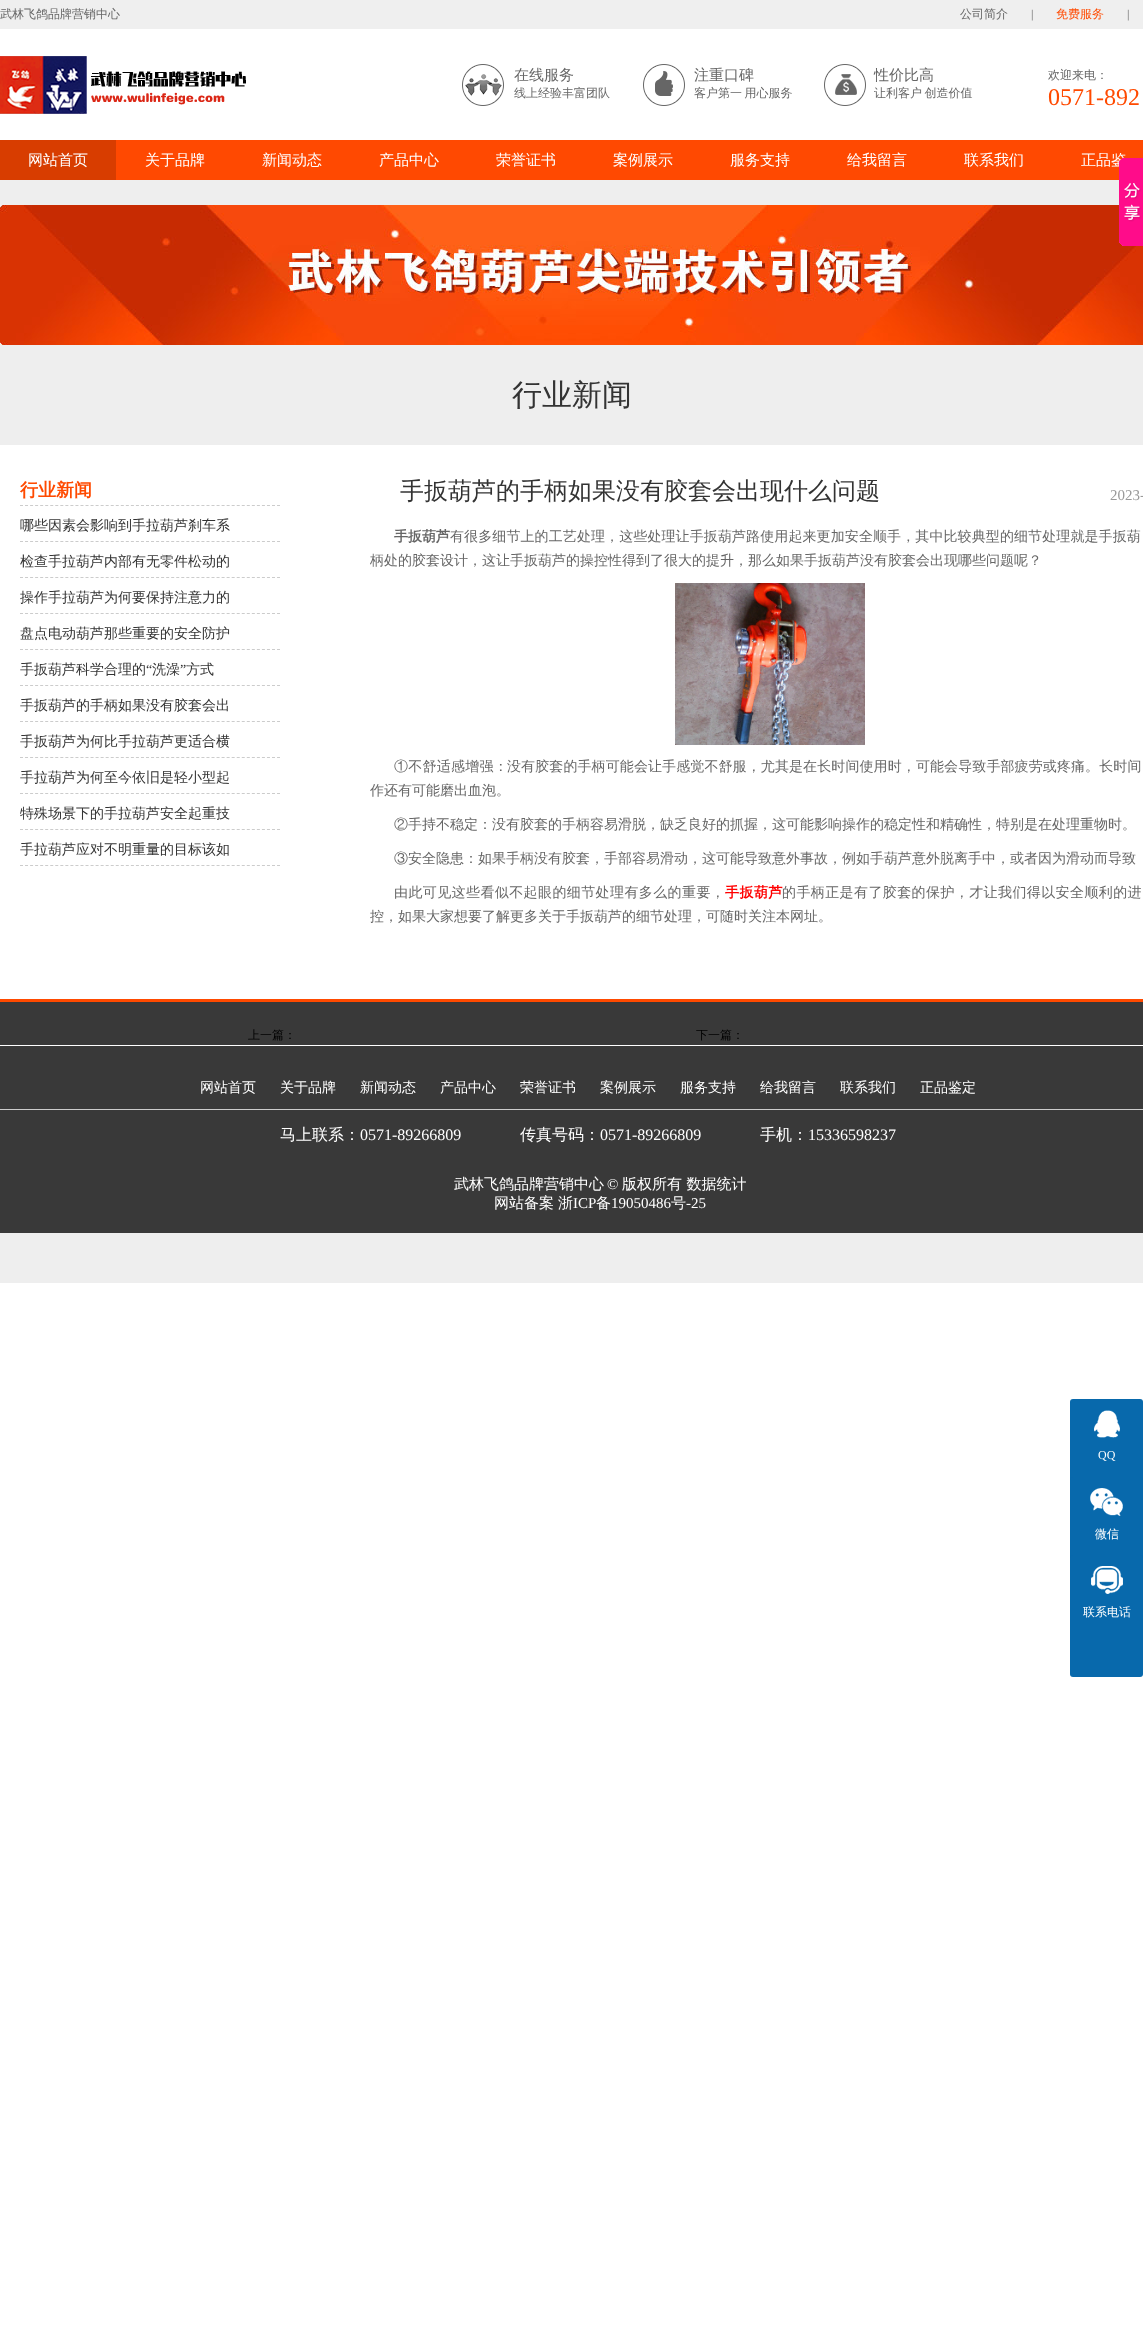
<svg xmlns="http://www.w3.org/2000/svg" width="1143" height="2333">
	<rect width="100%" height="100%" fill="#FFFFFF" />
	<rect x="0" y="0" width="1143" height="29" fill="#EFEFEF" />
	<g font-family="WenQuanYi Zen Hei" font-size="12" font-weight="500" fill="#666666">
		<text x="0" y="18">武林飞鸽品牌营销中心</text>
		<text x="960" y="18">公司简介</text>
	</g>
	<text x="1031" y="18" font-family="Liberation Serif" font-size="12" fill="#666666">|</text>
	<text x="1056" y="18" font-family="WenQuanYi Zen Hei" font-size="12" font-weight="500" fill="#FF4A00">免费服务</text>
	<text x="1127" y="18" font-family="Liberation Serif" font-size="12" fill="#666666">|</text>
	<image x="0" y="56" width="246" height="58" href="assets/img1.png" />
	<image x="462" y="64" width="42" height="42" href="assets/img2.png" />
	<text x="514" y="80" font-family="WenQuanYi Zen Hei" font-size="15" font-weight="500" fill="#666666">在线服务</text>
	<text x="514" y="97" font-family="WenQuanYi Zen Hei" font-size="12" font-weight="500" fill="#666666">线上经验丰富团队</text>
	<image x="643" y="64" width="42" height="42" href="assets/img3.png" />
	<text x="694" y="80" font-family="WenQuanYi Zen Hei" font-size="15" font-weight="500" fill="#666666">注重口碑</text>
	<text x="694" y="97" word-spacing="-1" font-family="WenQuanYi Zen Hei" font-size="12" font-weight="500" fill="#666666">客户第一 用心服务</text>
	<image x="824" y="64" width="42" height="42" href="assets/img4.png" />
	<text x="874" y="80" font-family="WenQuanYi Zen Hei" font-size="15" font-weight="500" fill="#666666">性价比高</text>
	<g font-family="WenQuanYi Zen Hei" font-size="12" font-weight="500" fill="#666666">
		<text x="874" y="97" word-spacing="-1">让利客户 创造价值</text>
		<text x="1048" y="79">欢迎来电：</text>
	</g>
	<text x="1048" y="105" font-family="Liberation Serif" font-size="24" fill="#FF4A00">0571-892</text>
	<rect x="116" y="140" width="1027" height="40" fill="#FF4901" />
	<rect x="0" y="140" width="116" height="40" fill="#D83D00" />
	<g font-family="WenQuanYi Zen Hei" font-size="15" font-weight="500" fill="#FFFFFF">
		<text x="28" y="165">网站首页</text>
		<text x="145" y="165">关于品牌</text>
		<text x="262" y="165">新闻动态</text>
		<text x="379" y="165">产品中心</text>
		<text x="496" y="165">荣誉证书</text>
		<text x="613" y="165">案例展示</text>
		<text x="730" y="165">服务支持</text>
		<text x="847" y="165">给我留言</text>
		<text x="964" y="165">联系我们</text>
		<text x="1081" y="165">正品鉴</text>
	</g>
	<rect x="0" y="180" width="1143" height="1103" fill="#EEEEEE" />
	<image x="0" y="205" width="1143" height="140" href="assets/img6.png" />
	<image x="1119" y="158" width="24" height="88" href="assets/img5.png" />
	<text x="512" y="405" font-family="WenQuanYi Zen Hei" font-size="30" font-weight="500" fill="#333333">行业新闻</text>
	<rect x="0" y="445" width="1143" height="554" fill="#FFFFFF" />
	<path d="M20 505.5H280" fill="none" stroke="#CCCCCC" stroke-dasharray="3 2.04" />
	<text x="20" y="496" font-family="WenQuanYi Zen Hei" font-size="18" font-weight="700" fill="#FF4A00">行业新闻</text>
	<path d="M20 541.5H280" fill="none" stroke="#CCCCCC" stroke-dasharray="3 2.04" />
	<text x="20" y="530" font-family="WenQuanYi Zen Hei" font-size="14" font-weight="500" fill="#333333">哪些因素会影响到手拉葫芦刹车系</text>
	<path d="M20 577.5H280" fill="none" stroke="#CCCCCC" stroke-dasharray="3 2.04" />
	<text x="20" y="566" font-family="WenQuanYi Zen Hei" font-size="14" font-weight="500" fill="#333333">检查手拉葫芦内部有无零件松动的</text>
	<path d="M20 613.5H280" fill="none" stroke="#CCCCCC" stroke-dasharray="3 2.04" />
	<text x="20" y="602" font-family="WenQuanYi Zen Hei" font-size="14" font-weight="500" fill="#333333">操作手拉葫芦为何要保持注意力的</text>
	<path d="M20 649.5H280" fill="none" stroke="#CCCCCC" stroke-dasharray="3 2.04" />
	<text x="20" y="638" font-family="WenQuanYi Zen Hei" font-size="14" font-weight="500" fill="#333333">盘点电动葫芦那些重要的安全防护</text>
	<path d="M20 685.5H280" fill="none" stroke="#CCCCCC" stroke-dasharray="3 2.04" />
	<text x="20" y="674" font-family="WenQuanYi Zen Hei" font-size="14" font-weight="500" fill="#333333">手扳葫芦科学合理的</text>
	<text x="146" y="674" font-family="Liberation Serif" font-size="14" fill="#333333">“</text>
	<text x="152" y="674" font-family="WenQuanYi Zen Hei" font-size="14" font-weight="500" fill="#333333">洗澡</text>
	<text x="180" y="674" font-family="Liberation Serif" font-size="14" fill="#333333">”</text>
	<text x="186" y="674" font-family="WenQuanYi Zen Hei" font-size="14" font-weight="500" fill="#333333">方式</text>
	<path d="M20 721.5H280" fill="none" stroke="#CCCCCC" stroke-dasharray="3 2.04" />
	<text x="20" y="710" font-family="WenQuanYi Zen Hei" font-size="14" font-weight="500" fill="#333333">手扳葫芦的手柄如果没有胶套会出</text>
	<path d="M20 757.5H280" fill="none" stroke="#CCCCCC" stroke-dasharray="3 2.04" />
	<text x="20" y="746" font-family="WenQuanYi Zen Hei" font-size="14" font-weight="500" fill="#333333">手扳葫芦为何比手拉葫芦更适合横</text>
	<path d="M20 793.5H280" fill="none" stroke="#CCCCCC" stroke-dasharray="3 2.04" />
	<text x="20" y="782" font-family="WenQuanYi Zen Hei" font-size="14" font-weight="500" fill="#333333">手拉葫芦为何至今依旧是轻小型起</text>
	<path d="M20 829.5H280" fill="none" stroke="#CCCCCC" stroke-dasharray="3 2.04" />
	<text x="20" y="818" font-family="WenQuanYi Zen Hei" font-size="14" font-weight="500" fill="#333333">特殊场景下的手拉葫芦安全起重技</text>
	<path d="M20 865.5H280" fill="none" stroke="#CCCCCC" stroke-dasharray="3 2.04" />
	<text x="20" y="854" font-family="WenQuanYi Zen Hei" font-size="14" font-weight="500" fill="#333333">手拉葫芦应对不明重量的目标该如</text>
	<text x="400" y="499" font-family="WenQuanYi Zen Hei" font-size="24" font-weight="500" fill="#333333">手扳葫芦的手柄如果没有胶套会出现什么问题</text>
	<text x="1110" y="500" font-family="Liberation Serif" font-size="15" fill="#999999">2023-</text>
	<text x="394" y="541" font-family="WenQuanYi Zen Hei" font-size="14" font-weight="700" fill="#666666">手扳葫芦</text>
	<text x="450" y="541" font-family="WenQuanYi Zen Hei" font-size="14" font-weight="500" letter-spacing="0.1" fill="#666666">有很多细节上的工艺处理，这些处理让手扳葫芦路使用起来更加安全顺手，其中比较典型的细节处理就是手扳葫</text>
	<text x="370" y="565" font-family="WenQuanYi Zen Hei" font-size="14" font-weight="500" fill="#666666">柄处的胶套设计，这让手扳葫芦的操控性得到了很大的提升，那么如果手扳葫芦没有胶套会出现哪些问题呢？</text>
	<image x="675" y="583" width="190" height="162" href="assets/img7.png" />
	<text x="394" y="771" font-family="WenQuanYi Zen Hei" font-size="14" font-weight="500" letter-spacing="0.25" fill="#666666">①不舒适感增强：</text>
	<text x="507" y="771" font-family="WenQuanYi Zen Hei" font-size="14" font-weight="500" letter-spacing="0.1" fill="#666666">没有胶套的手柄可能会让手感觉不舒服，尤其是在长时间使用时，可能会导致手部疲劳或疼痛。长时间</text>
	<g font-family="WenQuanYi Zen Hei" font-size="14" font-weight="500" fill="#666666">
		<text x="370" y="795">作还有可能磨出血泡。</text>
		<text x="394" y="829">②手持不稳定：没有胶套的手柄容易滑脱，缺乏良好的抓握，这可能影响操作的稳定性和精确性，特别是在处理重物时。</text>
		<text x="394" y="863">③安全隐患：如果手柄没有胶套，手部容易滑动，这可能导致意外事故，例如手葫芦意外脱离手中，或者因为滑动而导致</text>
	</g>
	<text x="394" y="897" font-family="WenQuanYi Zen Hei" font-size="14" font-weight="500" letter-spacing="0.4" fill="#666666">由此可见这些看似不起眼的细节处理有多么的重要，</text>
	<text x="725" y="897" font-family="WenQuanYi Zen Hei" font-size="14" font-weight="700" letter-spacing="0.5" fill="#FF0000">手扳葫芦</text>
	<text x="782" y="897" font-family="WenQuanYi Zen Hei" font-size="14" font-weight="500" letter-spacing="0.4" fill="#666666">的手柄正是有了胶套的保护，才让我们得以安全顺利的进</text>
	<text x="370" y="921" font-family="WenQuanYi Zen Hei" font-size="14" font-weight="500" fill="#666666">控，如果大家想要了解更多关于手扳葫芦的细节处理，可随时关注本网址。</text>
	<rect x="0" y="1002" width="1143" height="231" fill="#393939" />
	<g font-family="WenQuanYi Zen Hei" font-size="12" font-weight="500" fill="#000000">
		<text x="248" y="1039">上一篇：</text>
		<text x="696" y="1039">下一篇：</text>
	</g>
	<rect x="0" y="999" width="1143" height="3" fill="#FF4A00" />
	<rect x="0" y="1045" width="1143" height="1" fill="#FFFFFF" />
	<g font-family="WenQuanYi Zen Hei" font-size="14" font-weight="500" fill="#FFFFFF">
		<text x="200" y="1092">网站首页</text>
		<text x="280" y="1092">关于品牌</text>
		<text x="360" y="1092">新闻动态</text>
		<text x="440" y="1092">产品中心</text>
		<text x="520" y="1092">荣誉证书</text>
		<text x="600" y="1092">案例展示</text>
		<text x="680" y="1092">服务支持</text>
		<text x="760" y="1092">给我留言</text>
		<text x="840" y="1092">联系我们</text>
		<text x="920" y="1092">正品鉴定</text>
	</g>
	<rect x="0" y="1109" width="1143" height="1" fill="#CCCCCC" />
	<text x="280" y="1140" font-family="WenQuanYi Zen Hei" font-size="16" font-weight="500" fill="#FFFFFF">马上联系：</text>
	<text x="360" y="1140" font-family="Liberation Serif" font-size="16" fill="#FFFFFF">0571-89266809</text>
	<text x="520" y="1140" font-family="WenQuanYi Zen Hei" font-size="16" font-weight="500" fill="#FFFFFF">传真号码：</text>
	<text x="600" y="1140" font-family="Liberation Serif" font-size="16" fill="#FFFFFF">0571-89266809</text>
	<text x="760" y="1140" font-family="WenQuanYi Zen Hei" font-size="16" font-weight="500" fill="#FFFFFF">手机：</text>
	<text x="808" y="1140" font-family="Liberation Serif" font-size="16" fill="#FFFFFF">15336598237</text>
	<text x="454" y="1189" font-family="WenQuanYi Zen Hei" font-size="15" font-weight="500" fill="#FFFFFF">武林飞鸽品牌营销中心</text>
	<text x="607" y="1189" font-family="Liberation Serif" font-size="15" fill="#FFFFFF">©</text>
	<g font-family="WenQuanYi Zen Hei" font-size="15" font-weight="500" fill="#FFFFFF">
		<text x="622" y="1189">版权所有 数据统计</text>
		<text x="494" y="1208">网站备案</text>
		<text x="558" y="1208">浙</text>
	</g>
	<text x="573" y="1208" font-family="Liberation Serif" font-size="15" fill="#FFFFFF">ICP</text>
	<text x="596" y="1208" font-family="WenQuanYi Zen Hei" font-size="15" font-weight="500" fill="#FFFFFF">备</text>
	<text x="611" y="1208" font-family="Liberation Serif" font-size="15" fill="#FFFFFF">19050486</text>
	<text x="671" y="1208" font-family="WenQuanYi Zen Hei" font-size="15" font-weight="500" fill="#FFFFFF">号</text>
	<text x="686" y="1208" font-family="Liberation Serif" font-size="15" fill="#FFFFFF">-25</text>
	<rect x="1070" y="1399" width="73" height="122" rx="3" fill="#0869AC" />
	<image x="1094" y="1410" width="26" height="28" href="assets/img8.png" />
	<text x="1098" y="1459" font-family="Liberation Serif" font-size="12" fill="#FFFFFF">QQ</text>
	<rect x="1070" y="1477" width="73" height="122" rx="3" fill="#0869AC" />
	<image x="1090" y="1488" width="33" height="28" href="assets/img9.png" />
	<text x="1095" y="1538" font-family="WenQuanYi Zen Hei" font-size="12" font-weight="500" fill="#FFFFFF">微信</text>
	<rect x="1070" y="1555" width="73" height="122" rx="3" fill="#0869AC" />
	<image x="1091" y="1566" width="32" height="28" href="assets/img10.png" />
	<text x="1083" y="1616" font-family="WenQuanYi Zen Hei" font-size="12" font-weight="500" fill="#FFFFFF">联系电话</text>
</svg>
